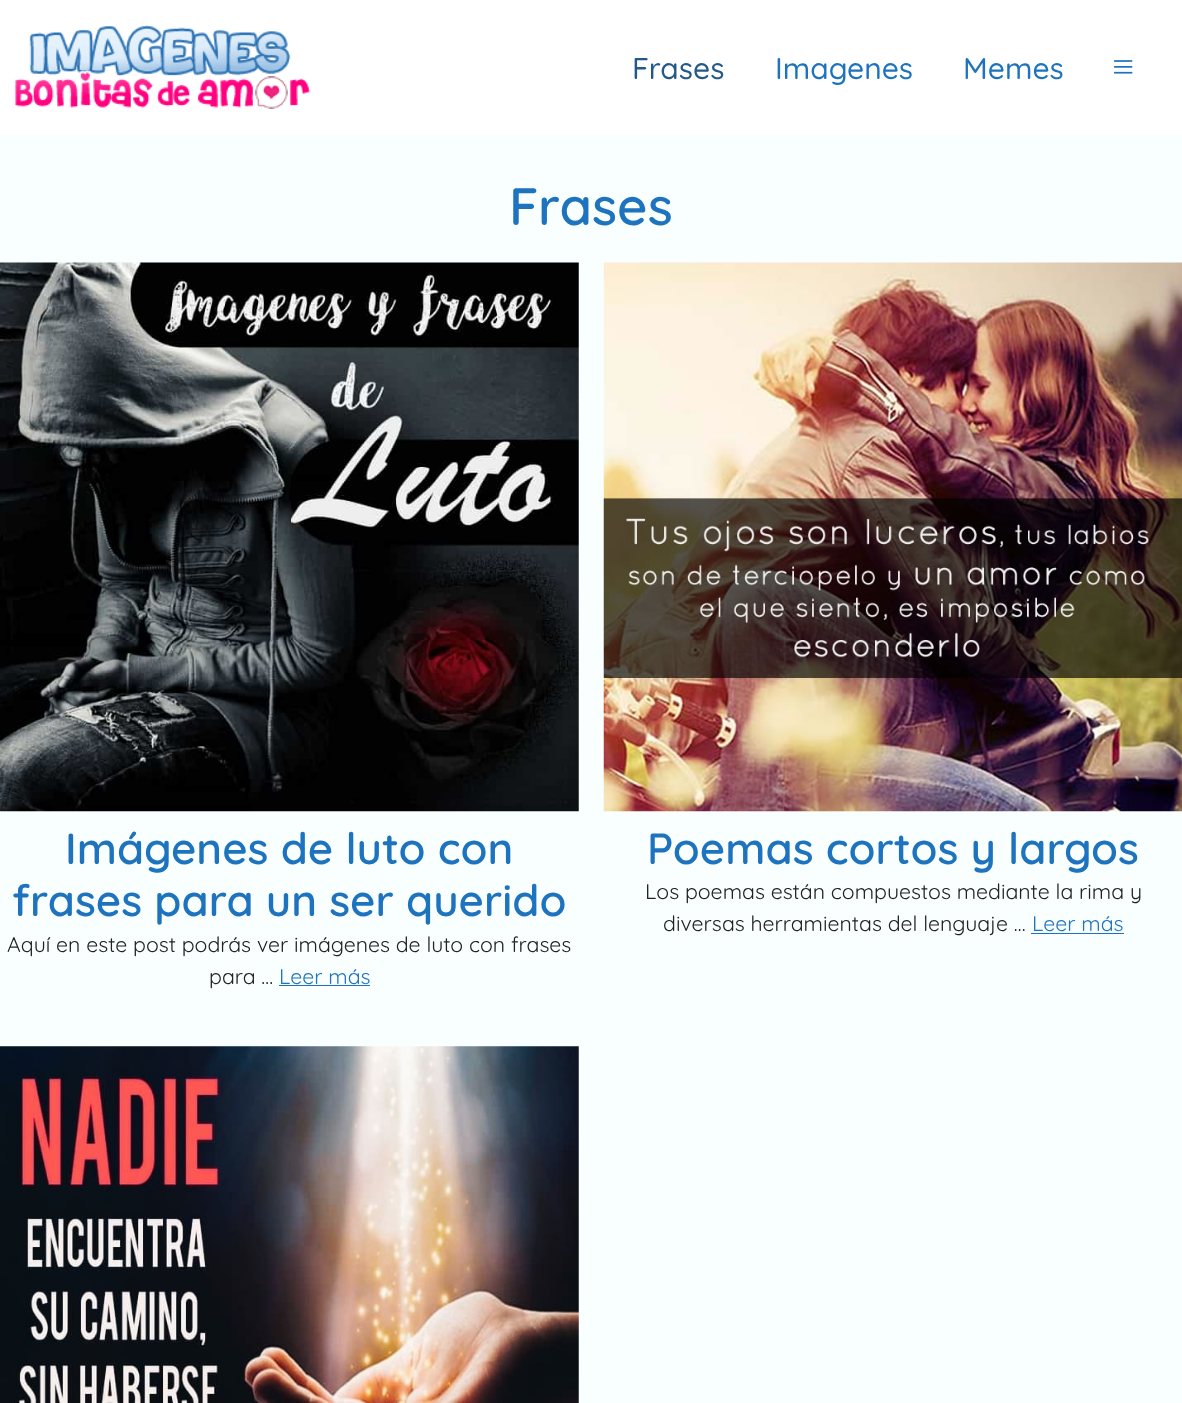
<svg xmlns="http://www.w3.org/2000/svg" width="1182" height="1403">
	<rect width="100%" height="100%" fill="#F9FEFE" />
	<rect x="0" y="0" width="1182" height="135" fill="#FFFFFF" />
	<image x="14" y="25" width="297" height="84" href="assets/img1.png" />
	<text x="632" y="79" font-family="Quicksand" font-size="30" font-weight="500" fill="#235988">Frases</text>
	<g font-family="Quicksand" font-size="30" font-weight="500" fill="#1E73BE">
		<text x="775" y="79">Imagenes</text>
		<text x="963" y="79">Memes</text>
	</g>
	<image x="1114" y="60" width="19" height="14" href="assets/img2.png" />
	<text x="509" y="225" font-family="Quicksand" font-size="52.5" font-weight="600" fill="#1E73BE">Frases</text>
	<image x="0" y="262" width="579" height="550" href="assets/img3.png" />
	<g font-family="Quicksand" font-size="43.75" font-weight="600" fill="#1E73BE">
		<text x="65" y="864">Imágenes de luto con</text>
		<text x="12" y="916">frases para un ser querido</text>
	</g>
	<g font-family="Quicksand" font-size="21.25" fill="#222222">
		<text x="7" y="952">Aquí en este post podrás ver imágenes de luto con frases</text>
		<text x="209" y="984">para …</text>
	</g>
	<text x="279" y="984" font-family="Quicksand" font-size="21.25" fill="#1E73BE">Leer más</text>
	<rect x="279" y="985" width="91" height="1" fill="#1E73BE" />
	<image x="603" y="262" width="579" height="550" href="assets/img4.png" />
	<text x="647" y="864" font-family="Quicksand" font-size="43.75" font-weight="600" fill="#1E73BE">Poemas cortos y largos</text>
	<g font-family="Quicksand" font-size="21.25" fill="#222222">
		<text x="645" y="899">Los poemas están compuestos mediante la rima y</text>
		<text x="663" y="931">diversas herramientas del lenguaje …</text>
	</g>
	<text x="1032" y="931" font-family="Quicksand" font-size="21.25" fill="#1E73BE">Leer más</text>
	<rect x="1031" y="933" width="93" height="1" fill="#1E73BE" />
	<image x="0" y="1046" width="579" height="357" href="assets/img5.png" />
</svg>
